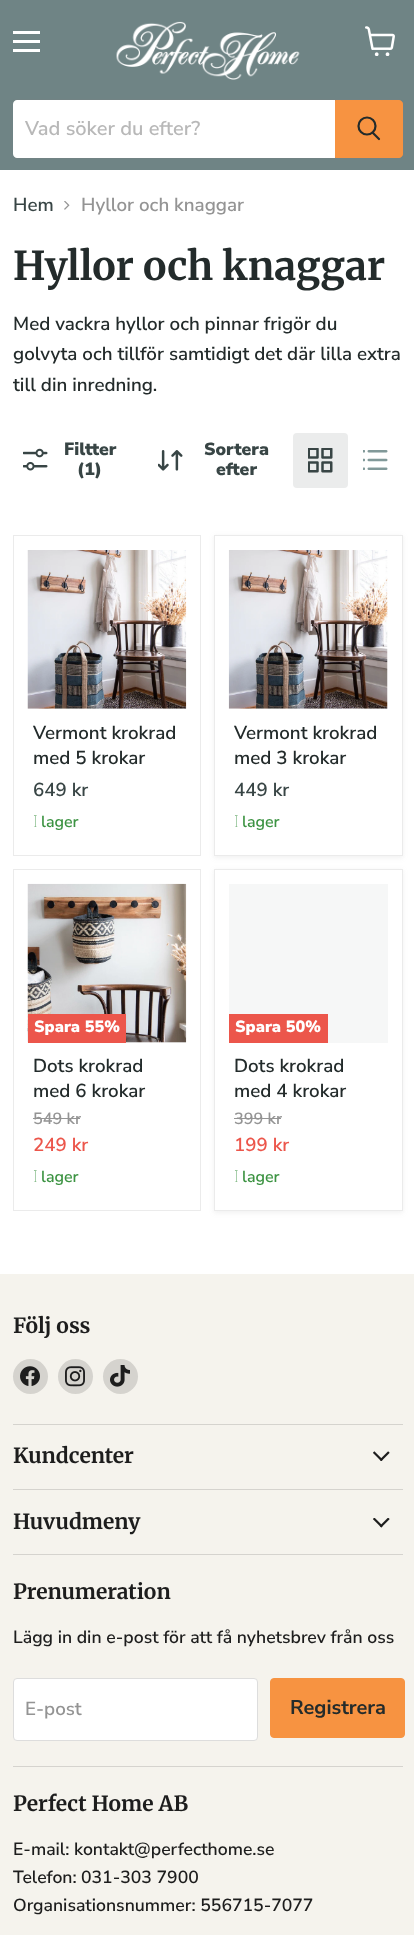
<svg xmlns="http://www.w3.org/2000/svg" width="414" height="1935">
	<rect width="100%" height="100%" fill="#FFFFFF" />
	<rect x="0" y="0" width="414" height="170" fill="#6F8485" />
	<rect x="13" y="31" width="27" height="3" fill="#FFFFFF" />
	<rect x="13" y="40" width="27" height="3" fill="#FFFFFF" />
	<rect x="13" y="49" width="27" height="3" fill="#FFFFFF" />
	<image x="365" y="26" width="30" height="30" href="assets/img1.png" />
	<image x="116" y="21" width="184" height="59" href="assets/img2.png" />
	<rect x="11.5" y="99.5" width="392" height="59" rx="4.5" fill="none" stroke="#728384" />
	<path d="M17 100H335V158H17C15 158 13 156 13 154V104C13 102 15 100 17 100Z" fill="#FFFFFF" />
	<text x="25" y="135" font-family="Nunito Sans" font-size="20" font-weight="600" fill="#B8B8B8">Vad söker du efter?</text>
	<path d="M335.5 100.5H399C401 100.5 402.5 102 402.5 104V154C402.5 156 401 157.5 399 157.5H335.5Z" fill="#F79341" stroke="#F79341" />
	<path d="M379 139L373 133" fill="none" stroke="#232B2B" stroke-width="2.2" stroke-linecap="round" />
	<circle cx="367" cy="126" r="8.5" fill="none" stroke="#232B2B" stroke-width="2.2" />
	<text x="13" y="211" font-family="Nunito Sans" font-size="18.75" font-weight="600" fill="#384545">Hem</text>
	<image x="64" y="201" width="6" height="9" href="assets/img3.png" />
	<text x="81" y="211" font-family="Nunito Sans" font-size="18.75" font-weight="600" fill="#949494">Hyllor och knaggar</text>
	<text x="13" y="280" font-family="Merriweather" font-size="39.75" font-weight="700" fill="#232B2B">Hyllor och knaggar</text>
	<g font-family="Nunito Sans" font-size="18.75" font-weight="600" fill="#232B2B">
		<text x="13" y="330">Med vackra hyllor och pinnar frigör du</text>
		<text x="13" y="360">golvyta och tillför samtidigt det där lilla extra</text>
		<text x="13" y="391">till din inredning.</text>
	</g>
	<image x="23" y="448" width="25" height="23" href="assets/img4.png" />
	<g font-family="Nunito Sans" font-size="17.6" font-weight="900" fill="#384545">
		<text x="64" y="455">Filtter</text>
		<text x="77" y="475">(1)</text>
	</g>
	<image x="158" y="450" width="25" height="21" href="assets/img5.png" />
	<g font-family="Nunito Sans" font-size="17.6" font-weight="900" fill="#384545">
		<text x="204" y="455">Sortera</text>
		<text x="216" y="475">efter</text>
	</g>
	<rect x="293" y="433" width="55" height="55" rx="4" fill="#EBECEC" />
	<image x="308" y="448" width="25" height="25" href="assets/img6.png" />
	<image x="363" y="450" width="25" height="20" href="assets/img7.png" />
	<rect x="13.5" y="535.5" width="187" height="320" fill="none" stroke="#EBEBEB" />
	<rect x="28" y="708" width="158" height="1" fill="#F6F7F7" />
	<image x="27" y="550" width="160" height="159" href="assets/img8.png" />
	<g font-family="Nunito Sans" font-size="18.75" font-weight="600" fill="#232B2B">
		<text x="33" y="739">Vermont krokrad</text>
		<text x="33" y="764">med 5 krokar</text>
	</g>
	<text x="33" y="796" font-family="Nunito Sans" font-size="18.75" font-weight="600" fill="#384545">649 kr</text>
	<text x="33" y="827" font-family="Noto Sans" font-size="16" font-weight="100" fill="#3C9342">I</text>
	<text x="41" y="827" font-family="Nunito Sans" font-size="16" font-weight="600" fill="#3C9342">lager</text>
	<rect x="214" y="536" width="189" height="322" fill="#808080" fill-opacity="0.11" filter="blur(2.5px)" />
	<rect x="214.5" y="535.5" width="188" height="320" fill="#FFFFFF" stroke="#EBEBEB" />
	<image x="228" y="550" width="160" height="159" href="assets/img9.png" />
	<g font-family="Nunito Sans" font-size="18.75" font-weight="600" fill="#232B2B">
		<text x="234" y="739">Vermont krokrad</text>
		<text x="234" y="764">med 3 krokar</text>
	</g>
	<text x="234" y="796" font-family="Nunito Sans" font-size="18.75" font-weight="600" fill="#384545">449 kr</text>
	<text x="234" y="827" font-family="Noto Sans" font-size="16" font-weight="100" fill="#3C9342">I</text>
	<text x="242" y="827" font-family="Nunito Sans" font-size="16" font-weight="600" fill="#3C9342">lager</text>
	<rect x="13.5" y="869.5" width="187" height="341" fill="none" stroke="#EBEBEB" />
	<rect x="126" y="1042" width="60" height="1" fill="#F6F7F7" />
	<image x="27" y="883" width="160" height="160" href="assets/img10.png" />
	<rect x="28" y="1014" width="98" height="29" fill="#EC564B" />
	<text x="34" y="1032" font-family="Nunito Sans" font-size="16.25" font-weight="900" fill="#FFFFFF">Spara 55%</text>
	<g font-family="Nunito Sans" font-size="18.75" font-weight="600" fill="#232B2B">
		<text x="33" y="1072">Dots krokrad</text>
		<text x="33" y="1097">med 6 krokar</text>
	</g>
	<text x="33" y="1124" font-family="Nunito Sans" font-size="16.25" font-weight="600" fill="#949494">549 kr</text>
	<rect x="33" y="1118" width="47" height="1" fill="#949494" />
	<text x="33" y="1151" font-family="Nunito Sans" font-size="18.75" font-weight="600" fill="#EC564B">249 kr</text>
	<text x="33" y="1182" font-family="Noto Sans" font-size="16" font-weight="100" fill="#3C9342">I</text>
	<text x="41" y="1182" font-family="Nunito Sans" font-size="16" font-weight="600" fill="#3C9342">lager</text>
	<rect x="214" y="870" width="189" height="343" fill="#808080" fill-opacity="0.11" filter="blur(2.5px)" />
	<rect x="214.5" y="869.5" width="188" height="341" fill="#FFFFFF" stroke="#EBEBEB" />
	<rect x="229" y="884" width="159" height="159" fill="#F6F7F7" />
	<rect x="229" y="1014" width="99" height="29" fill="#EC564B" />
	<text x="235" y="1032" font-family="Nunito Sans" font-size="16.25" font-weight="900" fill="#FFFFFF">Spara 50%</text>
	<g font-family="Nunito Sans" font-size="18.75" font-weight="600" fill="#232B2B">
		<text x="234" y="1072">Dots krokrad</text>
		<text x="234" y="1097">med 4 krokar</text>
	</g>
	<text x="234" y="1124" font-family="Nunito Sans" font-size="16.25" font-weight="600" fill="#949494">399 kr</text>
	<rect x="234" y="1118" width="47" height="1" fill="#949494" />
	<text x="234" y="1151" font-family="Nunito Sans" font-size="18.75" font-weight="600" fill="#EC564B">199 kr</text>
	<text x="234" y="1182" font-family="Noto Sans" font-size="16" font-weight="100" fill="#3C9342">I</text>
	<text x="242" y="1182" font-family="Nunito Sans" font-size="16" font-weight="600" fill="#3C9342">lager</text>
	<rect x="0" y="1274" width="414" height="661" fill="#F5F3ED" />
	<rect x="13" y="1424" width="390" height="1" fill="#D5D3CE" />
	<text x="13" y="1333" font-family="'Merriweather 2'" font-size="21" font-weight="700" fill="#1D1D1D">Följ oss</text>
	<circle cx="30.5" cy="1376.5" r="17.5" fill="#D5D3CE" />
	<image x="20" y="1366" width="20" height="20" href="assets/img11.png" />
	<circle cx="75.5" cy="1376.5" r="17.5" fill="#D5D3CE" />
	<image x="65" y="1366" width="20" height="21" href="assets/img12.png" />
	<circle cx="120.5" cy="1376.5" r="17.5" fill="#D5D3CE" />
	<image x="110" y="1365" width="20" height="22" href="assets/img13.png" />
	<rect x="13" y="1489" width="390" height="1" fill="#D5D3CE" />
	<text x="13" y="1463" font-family="'Merriweather 2'" font-size="21" font-weight="700" fill="#1D1D1D">Kundcenter</text>
	<image x="373" y="1451" width="17" height="10" href="assets/img14.png" />
	<rect x="13" y="1554" width="390" height="1" fill="#D5D3CE" />
	<text x="13" y="1529" font-family="'Merriweather 2'" font-size="21" font-weight="700" fill="#1D1D1D">Huvudmeny</text>
	<image x="373" y="1518" width="17" height="10" href="assets/img15.png" />
	<rect x="13" y="1766" width="390" height="1" fill="#D5D3CE" />
	<text x="13" y="1599" font-family="'Merriweather 2'" font-size="21" font-weight="700" fill="#1D1D1D">Prenumeration</text>
	<text x="13" y="1643" font-family="Nunito Sans" font-size="17.6" font-weight="600" fill="#1D1D1D">Lägg in din e-post för att få nyhetsbrev från oss</text>
	<rect x="13.5" y="1678.5" width="244" height="62" rx="3.5" fill="#FFFFFF" stroke="#DDDDDD" />
	<text x="25" y="1715" font-family="Nunito Sans" font-size="18.75" font-weight="600" fill="#949494">E-post</text>
	<rect x="270.5" y="1678.5" width="134" height="59" rx="3.5" fill="#F79341" stroke="#F79341" />
	<text x="290" y="1714" font-family="Nunito Sans" font-size="20" font-weight="700" fill="#232B2B">Registrera</text>
	<text x="13" y="1811" font-family="'Merriweather 2'" font-size="21" font-weight="700" fill="#1D1D1D">Perfect Home AB</text>
	<g font-family="Nunito Sans" font-size="17.6" font-weight="600" fill="#1D1D1D">
		<text x="13" y="1855">E-mail:</text>
		<text x="74" y="1855">kontakt@perfecthome.se</text>
		<text x="13" y="1883">Telefon:</text>
		<text x="81" y="1883">031-303 7900</text>
		<text x="13" y="1911">Organisationsnummer: 556715-7077</text>
	</g>
</svg>
